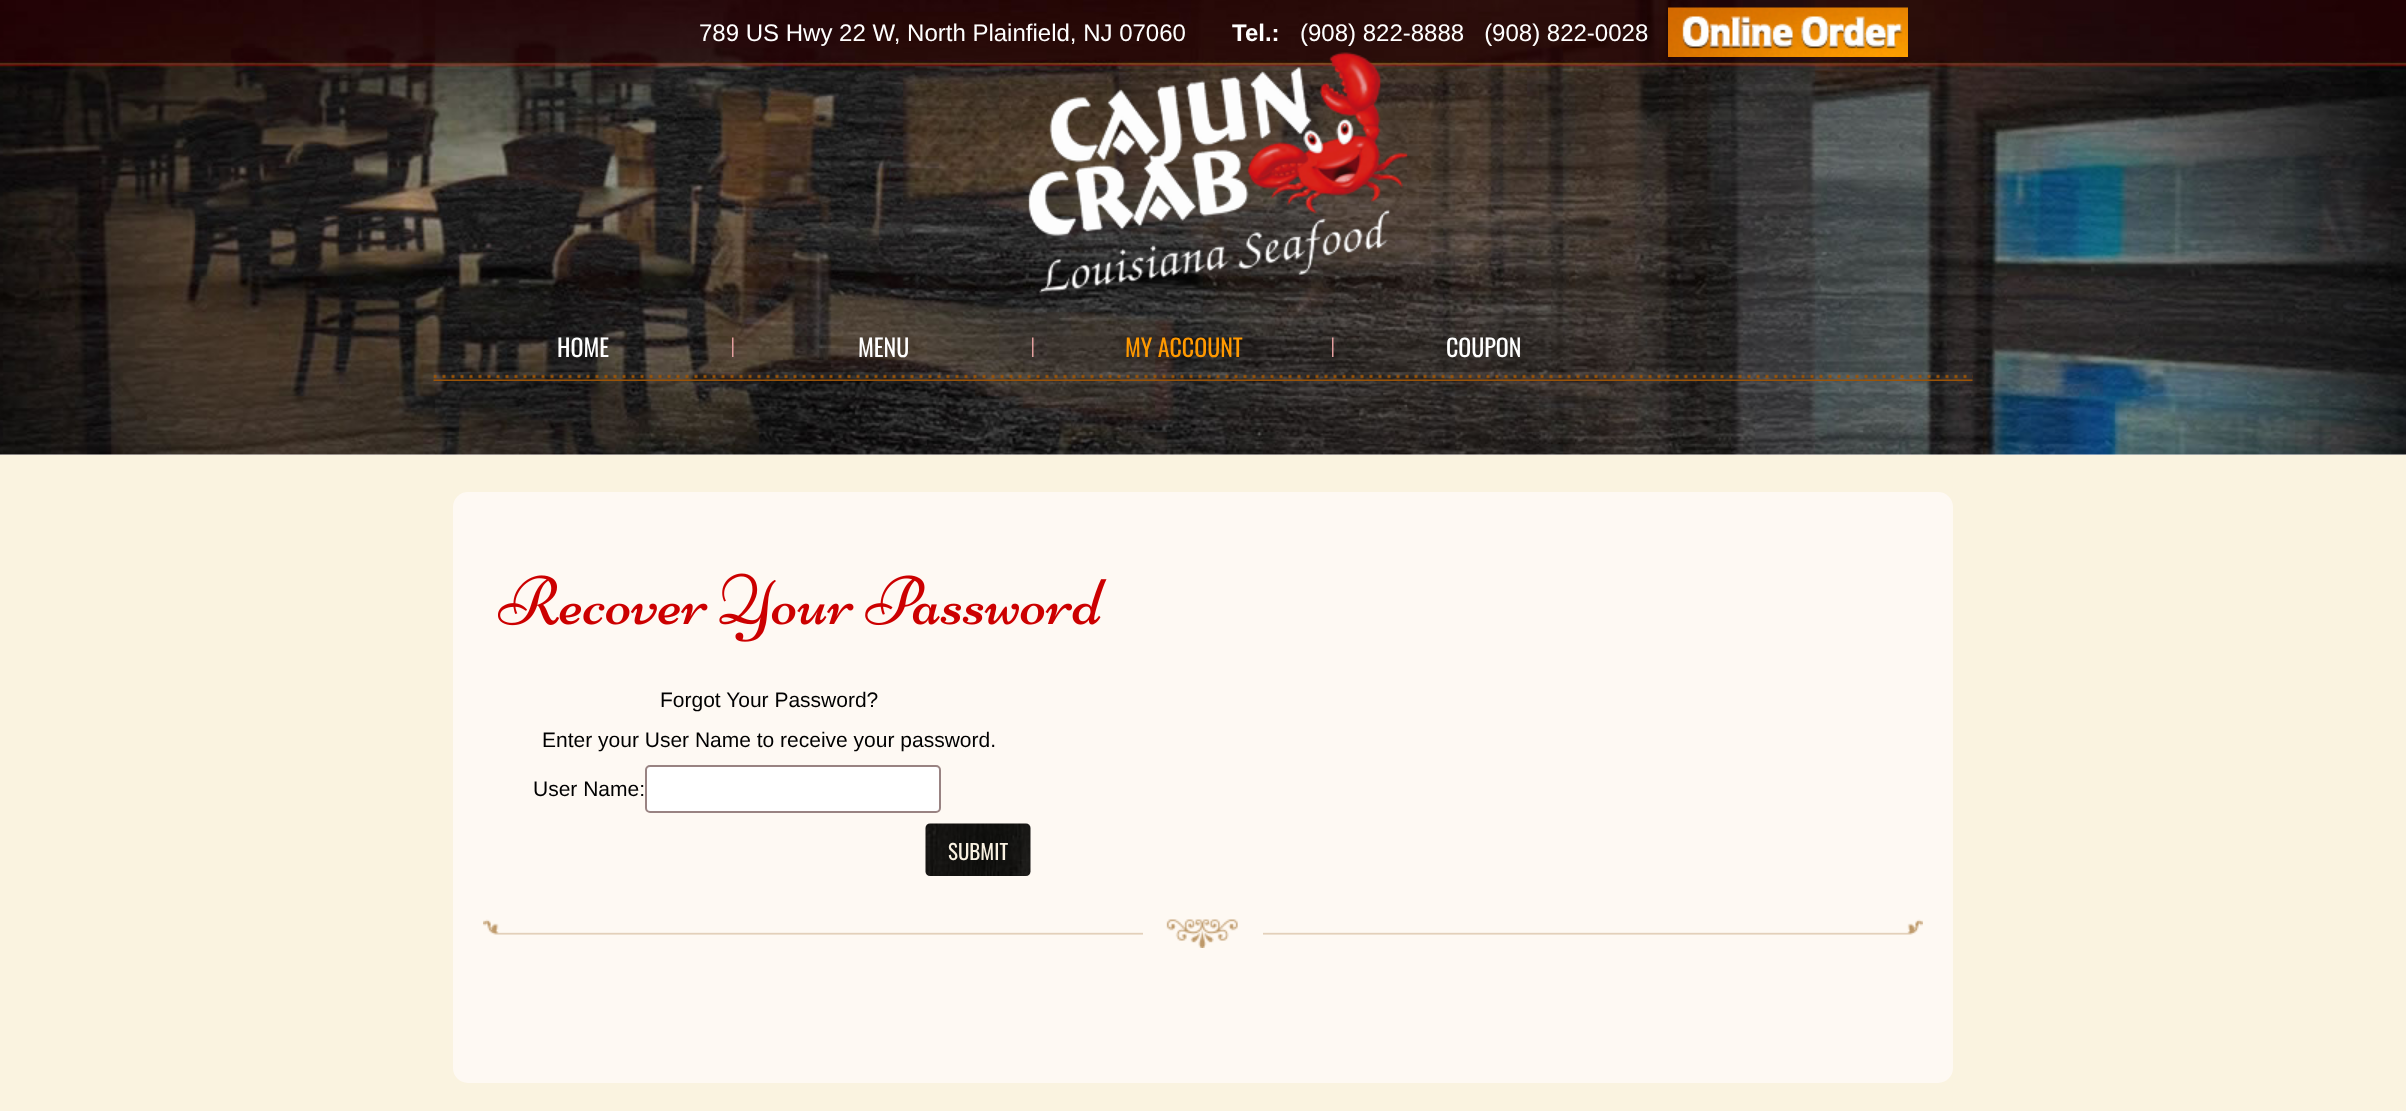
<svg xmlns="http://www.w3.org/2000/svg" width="2406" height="1111">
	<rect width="100%" height="100%" fill="#FAF3E0" />
	<rect x="0" y="454" width="2406" height="1" fill="#F5EFEF" />
	<image x="0" y="0" width="2406" height="455" href="assets/img1.png" />
	<image x="1028" y="52" width="380" height="241" href="assets/img2.png" />
	<text x="699" y="41" font-family="Liberation Sans" font-size="24" fill="#FFFFFF">789 US Hwy 22 W, North Plainfield, NJ 07060</text>
	<text x="1232" y="41" font-family="Liberation Sans" font-size="24" font-weight="700" fill="#FFFFFF">Tel.:</text>
	<text x="1300" y="41" font-family="Liberation Sans" font-size="24" fill="#FFFFFF" xml:space="preserve">(908) 822-8888   (908) 822-0028</text>
	<image x="1668" y="7" width="240" height="50" href="assets/img3.png" />
	<image x="433" y="372" width="1540" height="9" href="assets/img4.png" />
	<image x="732" y="337" width="2" height="20" href="assets/img5.png" />
	<text x="557" y="357" font-family="Oswald" font-size="24" fill="#FFFFFF">HOME</text>
	<image x="1032" y="337" width="2" height="20" href="assets/img6.png" />
	<text x="858" y="357" font-family="Oswald" font-size="24" fill="#FFFFFF">MENU</text>
	<image x="1332" y="337" width="2" height="20" href="assets/img7.png" />
	<text x="1125" y="357" font-family="Oswald" font-size="24" fill="#FF9900">MY ACCOUNT</text>
	<text x="1446" y="357" font-family="Oswald" font-size="24" fill="#FFFFFF">COUPON</text>
	<rect x="453" y="492" width="1500" height="591" rx="15" fill="#FEF9F3" />
	<image x="498" y="573" width="609" height="69" href="assets/img8.png" />
	<g font-family="Liberation Sans" font-size="21" fill="#000000">
		<text x="660" y="707">Forgot Your Password?</text>
		<text x="542" y="747">Enter your User Name to receive your password.</text>
		<text x="533" y="796">User Name:</text>
	</g>
	<rect x="646" y="766" width="294" height="46" rx="4" fill="#FFFFFF" stroke="#998382" stroke-width="2" />
	<image x="925" y="823" width="106" height="53" href="assets/img9.png" />
	<text x="948" y="860" font-family="Oswald" font-size="21" fill="#F9F1E1">SUBMIT</text>
	<image x="483" y="919" width="660" height="16" href="assets/img10.png" />
	<image x="1166" y="919" width="72" height="29" href="assets/img11.png" />
	<image x="1263" y="919" width="660" height="16" href="assets/img12.png" />
</svg>
